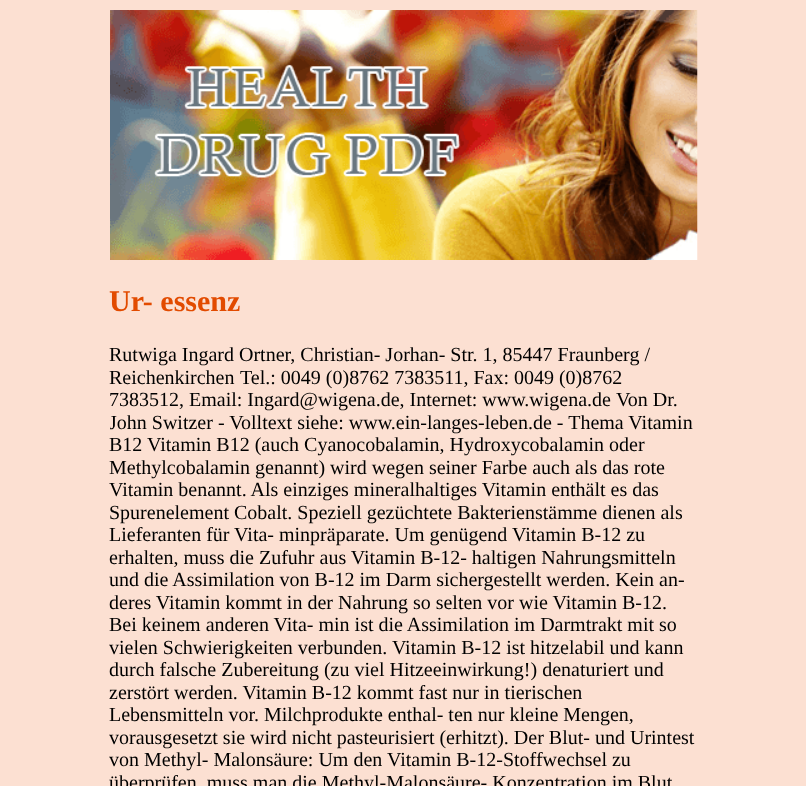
<svg xmlns="http://www.w3.org/2000/svg" width="806" height="786">
	<defs>
		<clipPath id="clip1"><rect x="110" y="10" width="588" height="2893" /></clipPath>
	</defs>
	<rect width="100%" height="100%" fill="#FCE0D2" />
	<image x="110" y="10" width="588" height="250" href="assets/img1.png" />
	<image x="154" y="64" width="307" height="114" href="assets/img2.png" />
	<text x="109" y="311" font-family="Liberation Serif" font-size="30" font-weight="700" fill="#E24B00">Ur- essenz</text>
	<g font-family="Liberation Serif" font-size="20" fill="#000000">
		<text x="109" y="361">Rutwiga Ingard Ortner, Christian- Jorhan- Str. 1, 85447 Fraunberg /</text>
		<text x="109" y="384">Reichenkirchen</text>
		<text x="240" y="384">Tel.: 0049 (0)8762 7383511, Fax: 0049 (0)8762</text>
		<text x="109" y="406">7383512, Email: Ingard@wigena.de, Internet: www.wigena.de</text>
		<text x="616" y="406">Von Dr.</text>
	</g>
	<g clip-path="url(#clip1)">
		<text x="109" y="429" font-family="Liberation Serif" font-size="20" fill="#000000">John Switzer - Volltext siehe: www.ein-langes-leben.de - Thema Vitamin</text>
	</g>
	<g font-family="Liberation Serif" font-size="20" fill="#000000">
		<text x="109" y="451">B12</text>
		<text x="147" y="451">Vitamin B12 (auch Cyanocobalamin, Hydroxycobalamin oder</text>
		<text x="109" y="474">Methylcobalamin genannt) wird wegen seiner Farbe auch als das rote</text>
		<text x="109" y="496">Vitamin benannt. Als einziges mineralhaltiges Vitamin enthält es das</text>
		<text x="109" y="519">Spurenelement Cobalt. Speziell gezüchtete Bakterienstämme dienen als</text>
		<text x="109" y="541">Lieferanten für Vita- minpräparate. Um genügend Vitamin B-12 zu</text>
		<text x="109" y="564">erhalten, muss die Zufuhr aus Vitamin B-12- haltigen Nahrungsmitteln</text>
		<text x="109" y="586">und die Assimilation von B-12 im Darm sichergestellt werden. Kein an-</text>
		<text x="109" y="609">deres Vitamin kommt in der Nahrung so selten vor wie Vitamin B-12.</text>
		<text x="109" y="631">Bei keinem anderen Vita- min ist die Assimilation im Darmtrakt mit so</text>
		<text x="109" y="654">vielen Schwierigkeiten verbunden. Vitamin B-12 ist hitzelabil und kann</text>
		<text x="109" y="676">durch falsche Zubereitung (zu viel Hitzeeinwirkung!) denaturiert und</text>
		<text x="109" y="699">zerstört werden. Vitamin B-12 kommt fast nur in tierischen</text>
		<text x="109" y="721">Lebensmitteln vor. Milchprodukte enthal- ten nur kleine Mengen,</text>
		<text x="109" y="744">vorausgesetzt sie wird nicht pasteurisiert (erhitzt). Der Blut- und Urintest</text>
		<text x="109" y="766">von Methyl- Malonsäure: Um den Vitamin B-12-Stoffwechsel zu</text>
		<text x="109" y="789">überprüfen, muss man die Methyl-Malonsäure- Konzentration im Blut</text>
	</g>
</svg>
